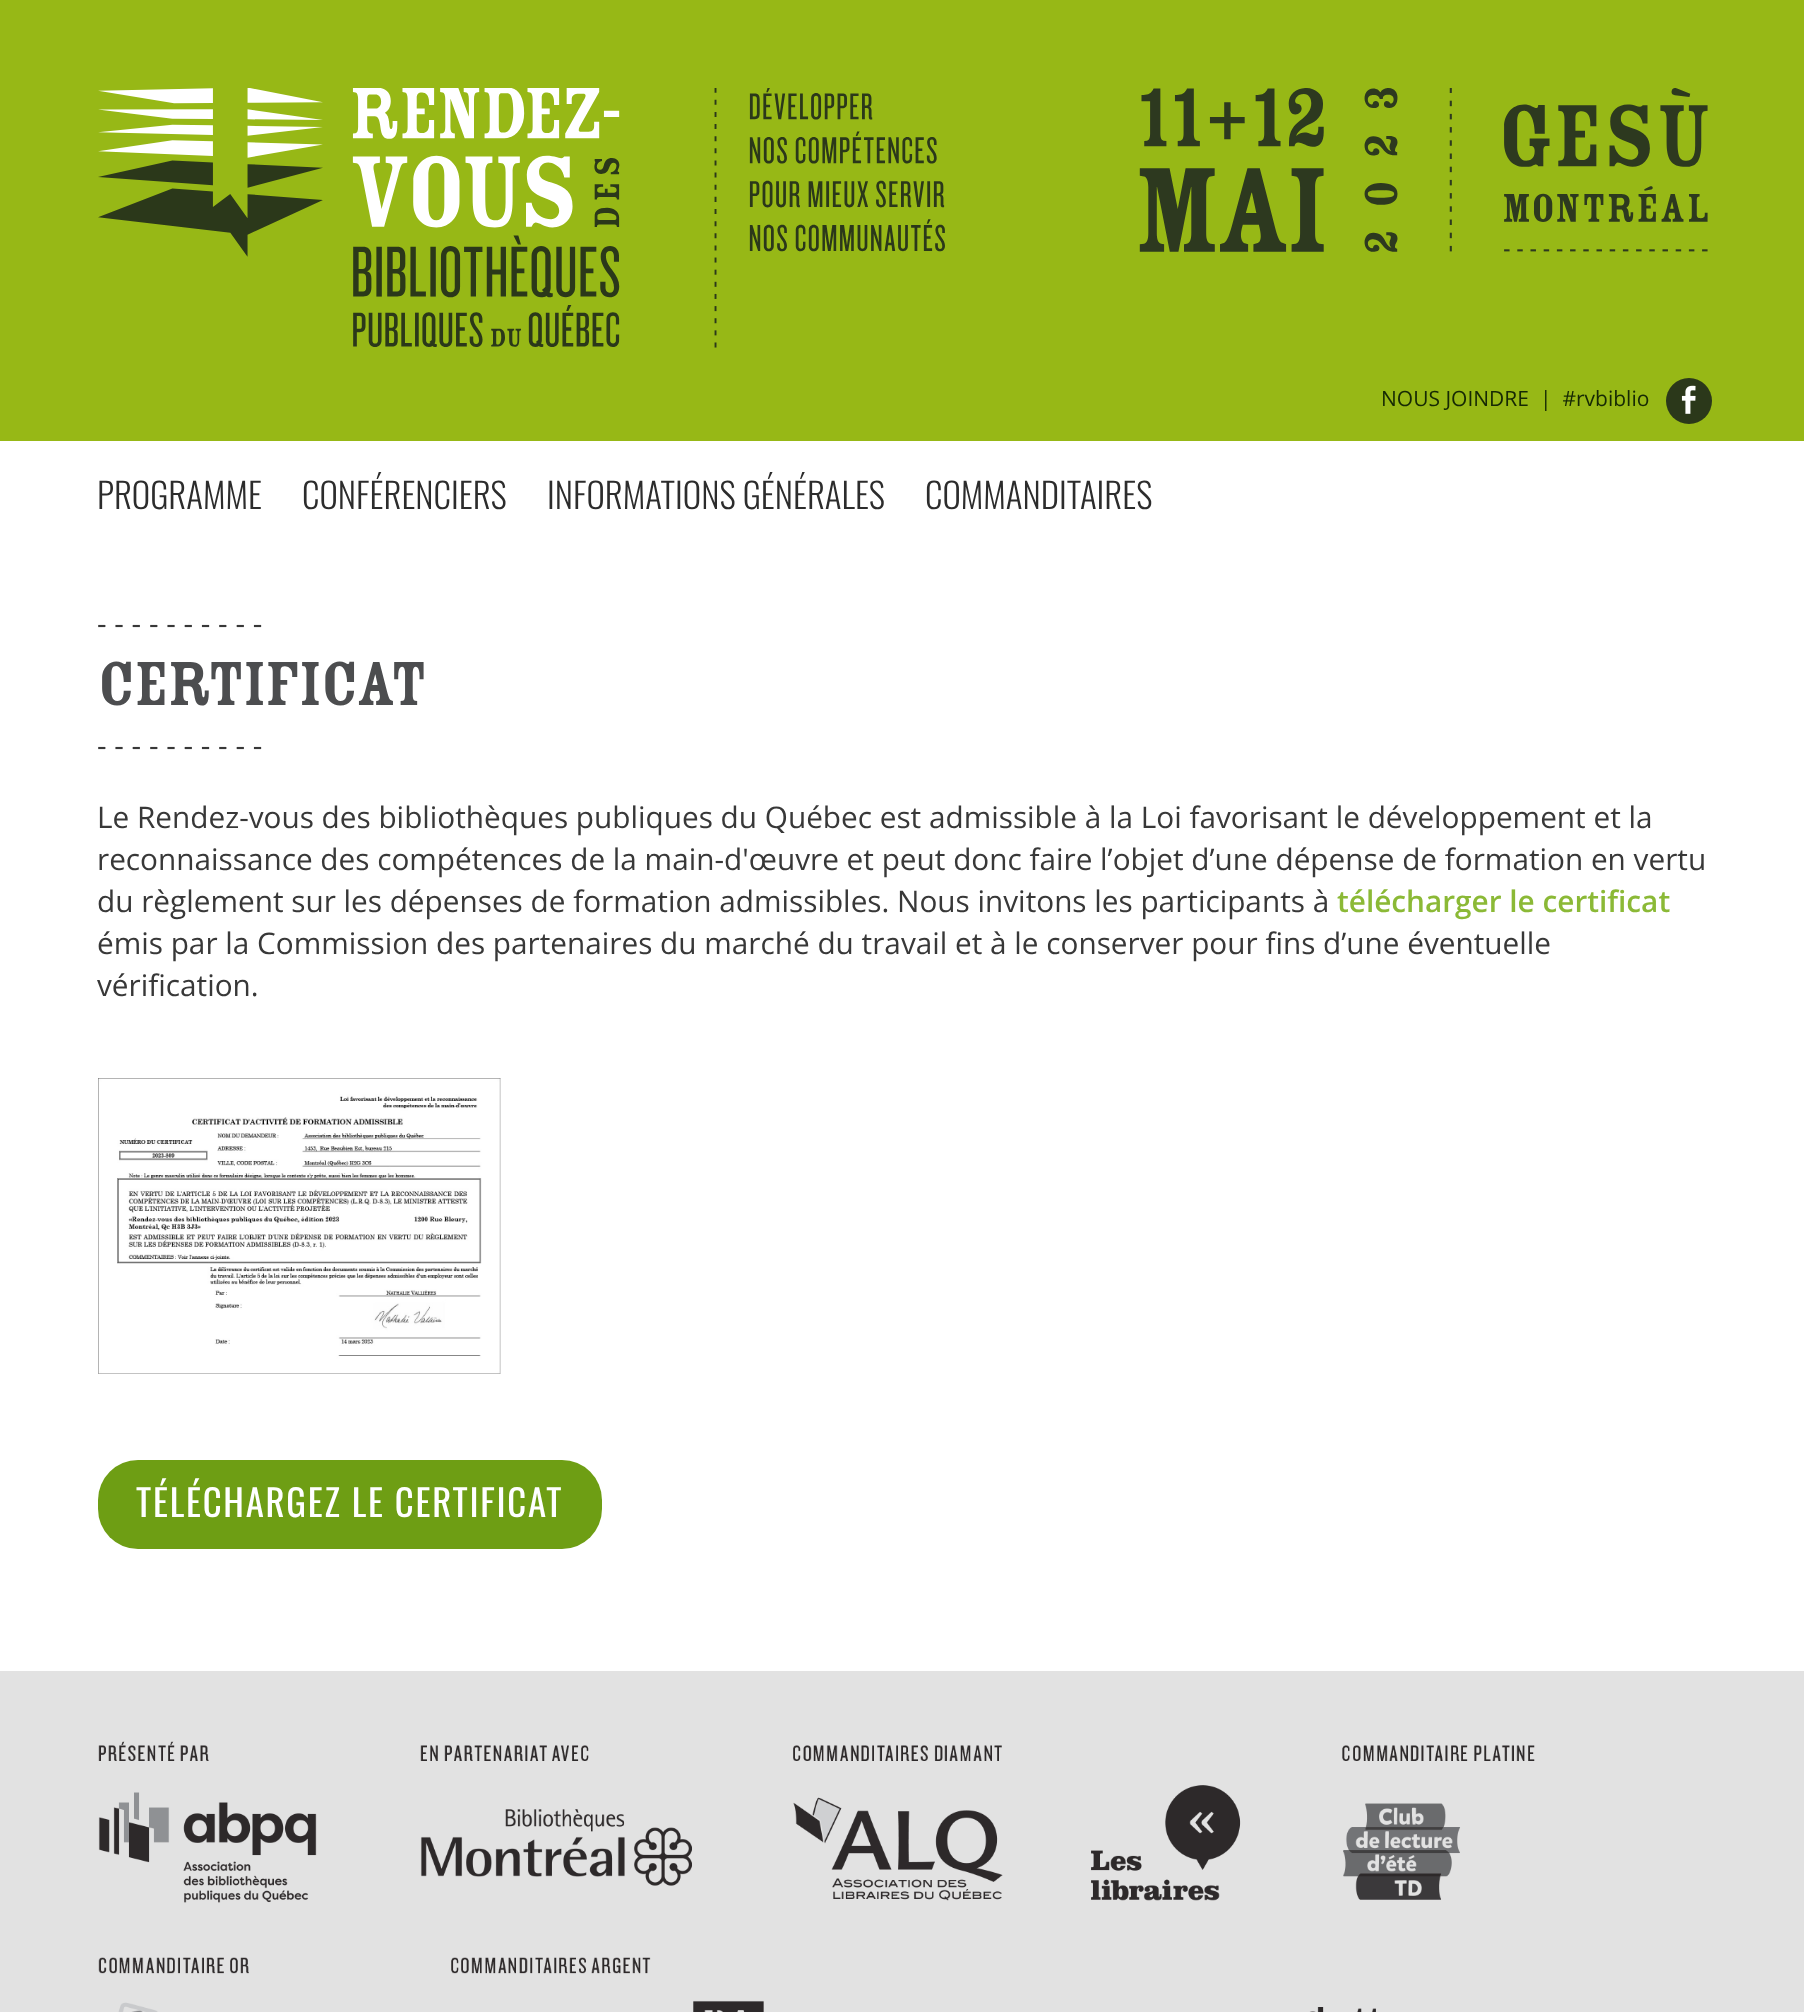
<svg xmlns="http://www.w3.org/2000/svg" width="1804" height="2012">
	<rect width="100%" height="100%" fill="#FFFFFF" />
	<rect x="0" y="0" width="1804" height="441" fill="#97B816" />
	<image x="98" y="88" width="847" height="260" href="assets/img1.png" />
	<image x="1139" y="88" width="569" height="164" href="assets/img2.png" />
	<g font-family="Open Sans" font-size="21" fill="#162904">
		<text x="1381" y="406">NOUS JOINDRE</text>
		<text x="1540" y="406" xml:space="preserve">|  #rvbiblio</text>
	</g>
	<circle cx="1689" cy="401" r="23" fill="#2B381A" />
	<image x="1681" y="385" width="15" height="29" href="assets/img3.png" />
	<g font-family="Oswald" font-size="35" font-weight="300" fill="#2C2C2C">
		<text x="97" y="509">PROGRAMME</text>
		<text x="302" y="509">CONFÉRENCIERS</text>
		<text x="547" y="509">INFORMATIONS GÉNÉRALES</text>
		<text x="925" y="509">COMMANDITAIRES</text>
	</g>
	<text x="97" y="634" font-family="Open Sans" font-size="29.75" fill="#383838">- - - - - - - - - -</text>
	<text x="97" y="705" font-family="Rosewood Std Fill" font-size="68.25" font-weight="700" letter-spacing="-1.75" fill="#4C4D4F">Certificat</text>
	<g font-family="Open Sans" font-size="29.75" fill="#383838">
		<text x="97" y="756">- - - - - - - - - -</text>
		<text x="97" y="828">Le Rendez-vous des bibliothèques publiques du Québec est admissible à la Loi favorisant le développement et la</text>
		<text x="97" y="870">reconnaissance des compétences de la main-d'œuvre et peut donc faire l’objet d’une dépense de formation en vertu</text>
		<text x="97" y="912">du règlement sur les dépenses de formation admissibles. Nous invitons les participants à</text>
	</g>
	<text x="1337" y="912" font-family="Open Sans" font-size="29.75" font-weight="600" fill="#8BB936">télécharger le certificat</text>
	<g font-family="Open Sans" font-size="29.75" fill="#383838">
		<text x="97" y="954">émis par la Commission des partenaires du marché du travail et à le conserver pour fins d’une éventuelle</text>
		<text x="97" y="996">vérification.</text>
	</g>
	<image x="98" y="1078" width="403" height="296" href="assets/img4.png" />
	<rect x="98" y="1460" width="504" height="89" rx="40" fill="#6E9E14" />
	<text x="136" y="1517" font-family="Oswald" font-size="36.75" letter-spacing="1.75" fill="#FFFFFF">TÉLÉCHARGEZ LE CERTIFICAT</text>
	<rect x="0" y="1671" width="1804" height="341" fill="#E2E2E2" />
	<image x="98" y="1741" width="1437" height="271" href="assets/img5.png" />
</svg>
